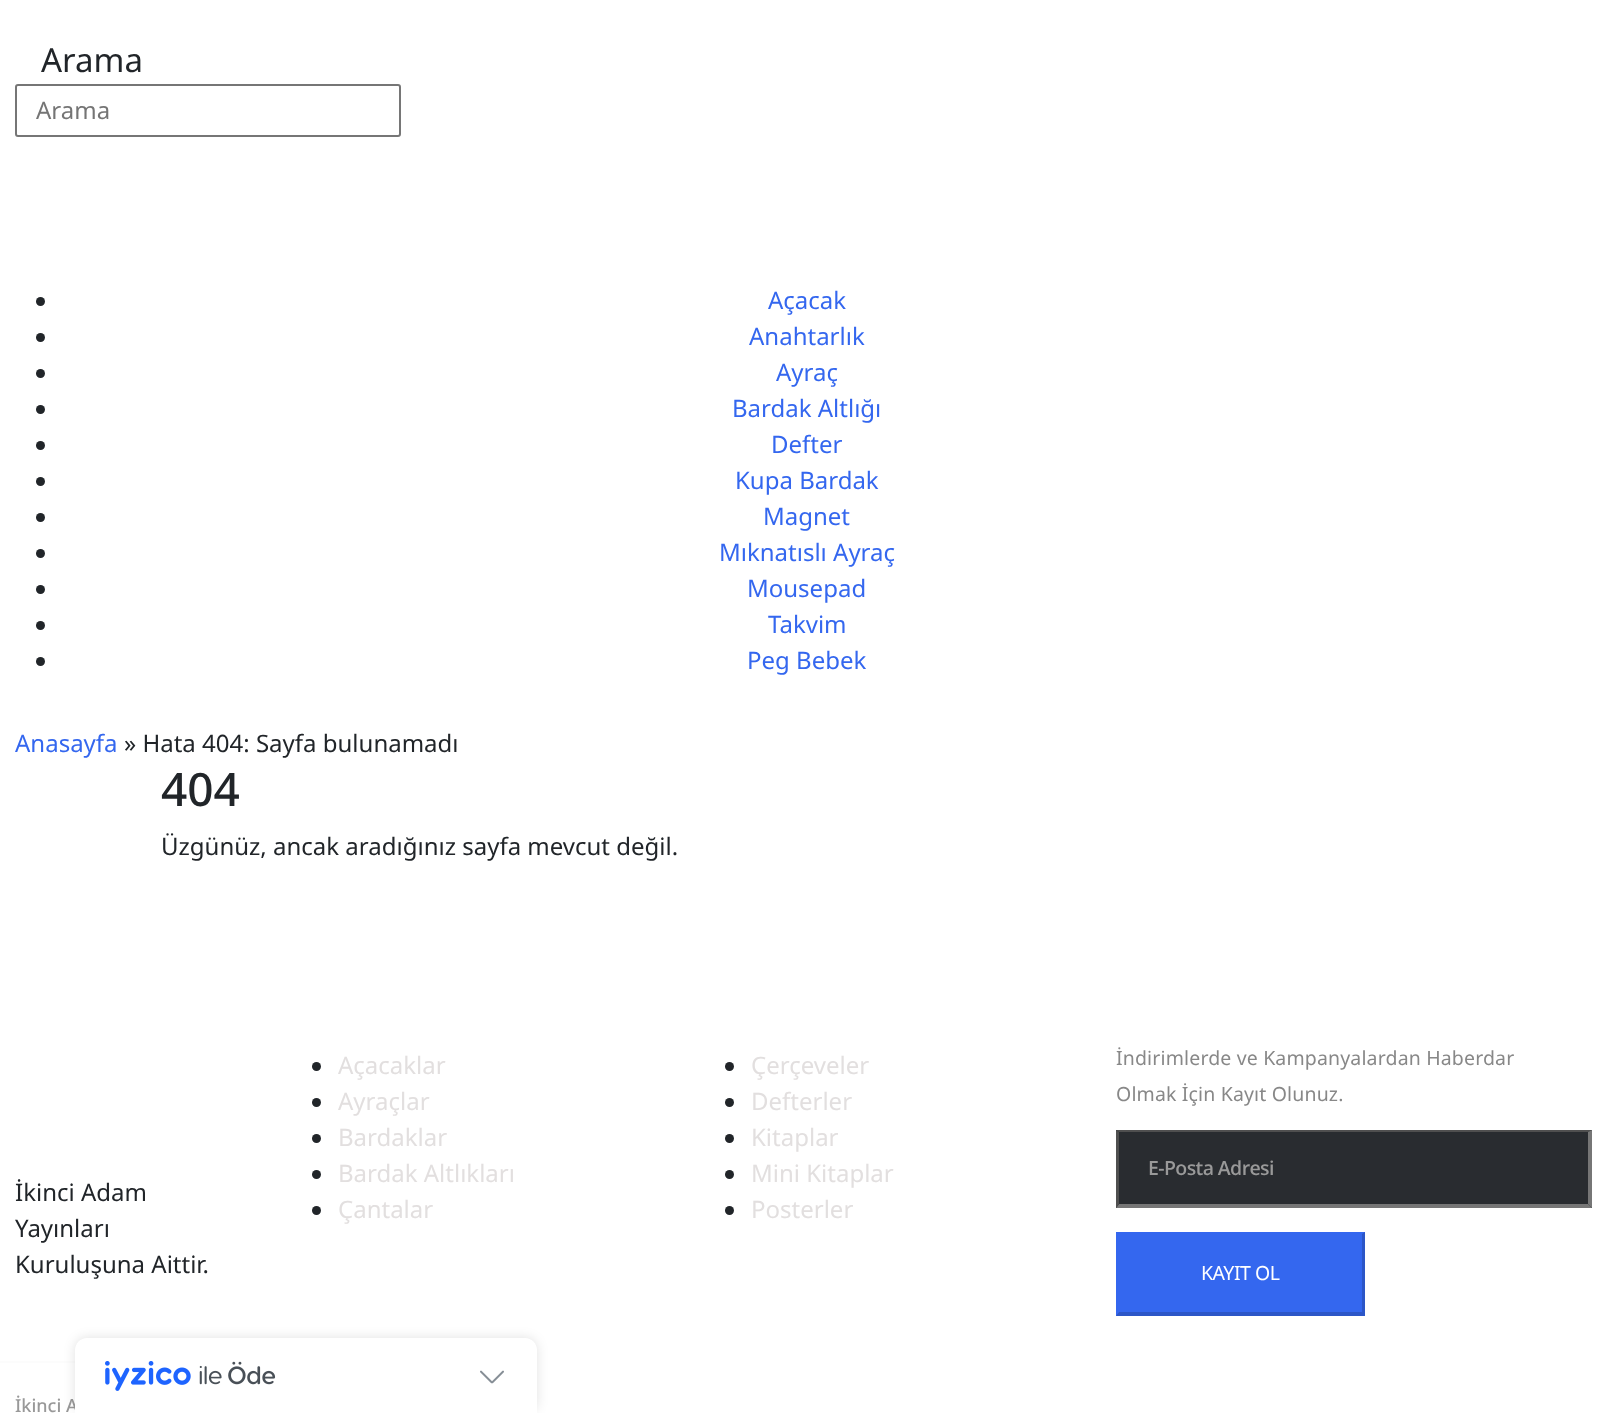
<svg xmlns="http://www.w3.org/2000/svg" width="1606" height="1413">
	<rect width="100%" height="100%" fill="#FFFFFF" />
	<text x="41" y="72" font-family="Noto Sans" font-size="33" fill="#212529">Arama</text>
	<rect x="16" y="85" width="384" height="51" rx="2" fill="none" stroke="#767676" stroke-width="2" />
	<text x="36" y="119" font-family="Noto Sans" font-size="24" fill="#757575">Arama</text>
	<circle cx="40.5" cy="301.5" r="4.5" fill="#212529" />
	<text x="768" y="309" font-family="Noto Sans" font-size="24" fill="#3467EF">Açacak</text>
	<circle cx="40.5" cy="337.5" r="4.5" fill="#212529" />
	<text x="749" y="345" font-family="Noto Sans" font-size="24" fill="#3467EF">Anahtarlık</text>
	<circle cx="40.5" cy="373.5" r="4.5" fill="#212529" />
	<text x="776" y="381" font-family="Noto Sans" font-size="24" fill="#3467EF">Ayraç</text>
	<circle cx="40.5" cy="409.5" r="4.5" fill="#212529" />
	<text x="732" y="417" font-family="Noto Sans" font-size="24" fill="#3467EF">Bardak Altlığı</text>
	<circle cx="40.5" cy="445.5" r="4.5" fill="#212529" />
	<text x="771" y="453" font-family="Noto Sans" font-size="24" fill="#3467EF">Defter</text>
	<circle cx="40.5" cy="481.5" r="4.5" fill="#212529" />
	<text x="735" y="489" font-family="Noto Sans" font-size="24" fill="#3467EF">Kupa Bardak</text>
	<circle cx="40.5" cy="517.5" r="4.5" fill="#212529" />
	<text x="763" y="525" font-family="Noto Sans" font-size="24" fill="#3467EF">Magnet</text>
	<circle cx="40.5" cy="553.5" r="4.5" fill="#212529" />
	<text x="719" y="561" font-family="Noto Sans" font-size="24" fill="#3467EF">Mıknatıslı Ayraç</text>
	<circle cx="40.5" cy="589.5" r="4.5" fill="#212529" />
	<text x="747" y="597" font-family="Noto Sans" font-size="24" fill="#3467EF">Mousepad</text>
	<circle cx="40.5" cy="625.5" r="4.5" fill="#212529" />
	<text x="768" y="633" font-family="Noto Sans" font-size="24" fill="#3467EF">Takvim</text>
	<circle cx="40.5" cy="661.5" r="4.5" fill="#212529" />
	<g font-family="Noto Sans" font-size="24" fill="#3467EF">
		<text x="747" y="669">Peg Bebek</text>
		<text x="15" y="752">Anasayfa</text>
	</g>
	<text x="124" y="752" font-family="Noto Sans" font-size="24" fill="#212529">» Hata 404: Sayfa bulunamadı</text>
	<text x="161" y="806" font-family="Noto Sans" font-size="46" font-weight="500" fill="#212529">404</text>
	<text x="161" y="855" font-family="Noto Sans" font-size="24" fill="#212529">Üzgünüz, ancak aradığınız sayfa mevcut değil.</text>
	<circle cx="316.5" cy="1066.5" r="4.5" fill="#212529" />
	<text x="338" y="1074" font-family="Noto Sans" font-size="24" fill="#E2DFDF">Açacaklar</text>
	<circle cx="316.5" cy="1102.5" r="4.5" fill="#212529" />
	<text x="338" y="1110" font-family="Noto Sans" font-size="24" fill="#E2DFDF">Ayraçlar</text>
	<circle cx="316.5" cy="1138.5" r="4.5" fill="#212529" />
	<text x="338" y="1146" font-family="Noto Sans" font-size="24" fill="#E2DFDF">Bardaklar</text>
	<circle cx="316.5" cy="1174.5" r="4.5" fill="#212529" />
	<text x="338" y="1182" font-family="Noto Sans" font-size="24" fill="#E2DFDF">Bardak Altlıkları</text>
	<circle cx="316.5" cy="1210.5" r="4.5" fill="#212529" />
	<text x="338" y="1218" font-family="Noto Sans" font-size="24" fill="#E2DFDF">Çantalar</text>
	<circle cx="729.5" cy="1066.5" r="4.5" fill="#212529" />
	<text x="751" y="1074" font-family="Noto Sans" font-size="24" fill="#E2DFDF">Çerçeveler</text>
	<circle cx="729.5" cy="1102.5" r="4.5" fill="#212529" />
	<text x="751" y="1110" font-family="Noto Sans" font-size="24" fill="#E2DFDF">Defterler</text>
	<circle cx="729.5" cy="1138.5" r="4.5" fill="#212529" />
	<text x="751" y="1146" font-family="Noto Sans" font-size="24" fill="#E2DFDF">Kitaplar</text>
	<circle cx="729.5" cy="1174.5" r="4.5" fill="#212529" />
	<text x="751" y="1182" font-family="Noto Sans" font-size="24" fill="#E2DFDF">Mini Kitaplar</text>
	<circle cx="729.5" cy="1210.5" r="4.5" fill="#212529" />
	<text x="751" y="1218" font-family="Noto Sans" font-size="24" fill="#E2DFDF">Posterler</text>
	<g font-family="Noto Sans" font-size="19.5" letter-spacing="0.15" fill="#888888">
		<text x="1116" y="1065">İndirimlerde ve Kampanyalardan Haberdar</text>
		<text x="1116" y="1101">Olmak İçin Kayıt Olunuz.</text>
	</g>
	<rect x="1116" y="1130" width="476" height="78" fill="#292C30" />
	<path d="M1116 1130H1592L1588 1132H1119Z" fill="#4F4F4F" />
	<path d="M1592 1130V1208L1588 1204V1132Z" fill="#767676" />
	<path d="M1592 1208H1116L1119 1204H1588Z" fill="#767676" />
	<path d="M1116 1208V1130L1119 1132V1204Z" fill="#4F4F4F" />
	<text x="1148" y="1175" font-family="Open Sans" font-size="19.5" font-weight="600" letter-spacing="-0.6" fill="#999999">E-Posta Adresi</text>
	<rect x="1116" y="1232" width="249" height="84" fill="#3467EF" />
	<path d="M1365 1232V1316L1362 1312V1234Z" fill="#2C56C7" />
	<path d="M1365 1316H1116L1119 1312H1362Z" fill="#23459F" fill-opacity="0.5" />
	<path d="M1116 1316V1232L1119 1234V1312Z" fill="#3467EF" fill-opacity="0.5" />
	<text x="1201" y="1280" font-family="Noto Sans" font-size="19.5" letter-spacing="-0.5" fill="#FFFFFF">KAYIT OL</text>
	<g font-family="Noto Sans" font-size="24" fill="#212529">
		<text x="15" y="1201">İkinci Adam</text>
		<text x="15" y="1237">Yayınları</text>
		<text x="15" y="1273">Kuruluşuna Aittir.</text>
	</g>
	<rect x="0" y="1361" width="75" height="2" fill="#FCFCFC" />
	<text x="15" y="1412" font-family="Noto Sans" font-size="18" font-weight="500" fill="#999999">İkinci A</text>
	<rect x="75" y="1338" width="462" height="75" rx="12" fill="#000000" fill-opacity="0.12" filter="blur(6px)" />
	<path d="M87 1338H525C531.5 1338 537 1343.5 537 1350V1413H75V1350C75 1343.5 80.5 1338 87 1338Z" fill="#FFFFFF" />
	<image x="105" y="1361" width="171" height="30" href="assets/img1.png" />
	<image x="480" y="1370" width="24" height="14" href="assets/img2.png" />
</svg>
